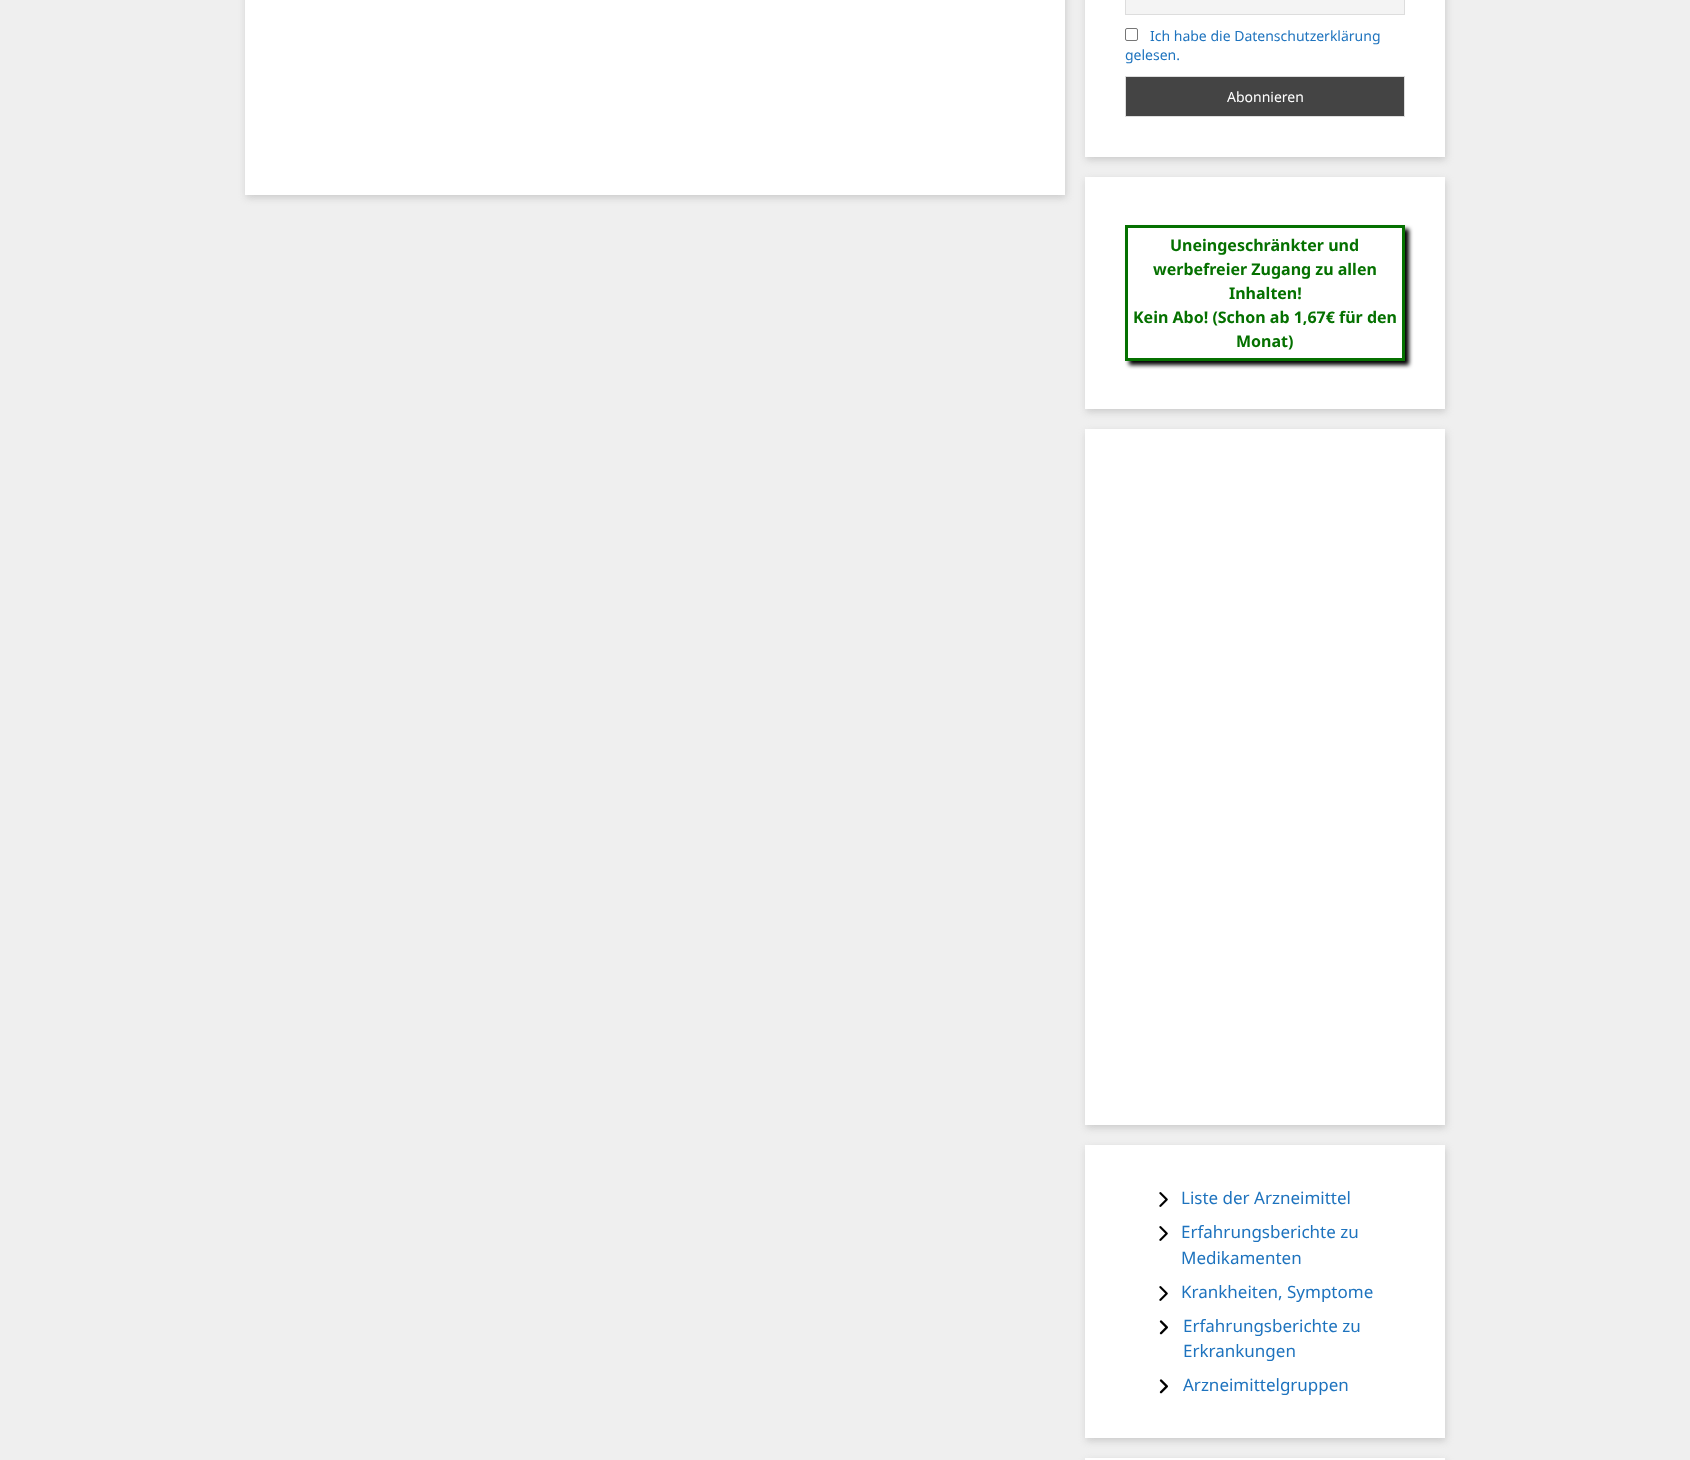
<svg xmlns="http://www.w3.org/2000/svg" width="1690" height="1460">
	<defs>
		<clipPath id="clip1"><path d="M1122 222H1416V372H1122ZM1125 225H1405V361H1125Z" clip-rule="evenodd" /></clipPath>
	</defs>
	<rect width="100%" height="100%" fill="#EFEFEF" />
	<rect x="246" y="-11" width="820" height="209" fill="#CCCCCC" filter="blur(3.5px)" />
	<rect x="245" y="0" width="820" height="195" fill="#FFFFFF" />
	<rect x="1086" y="-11" width="360" height="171" fill="#CCCCCC" filter="blur(3.5px)" />
	<rect x="1085" y="0" width="360" height="157" fill="#FFFFFF" />
	<rect x="1125.5" y="-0.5" width="279" height="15" fill="#F4F4F4" stroke="#DDDDDD" />
	<rect x="1125.5" y="28.5" width="12" height="12" rx="1.5" fill="none" stroke="#767676" />
	<g font-family="Noto Sans" font-size="14" fill="#1E73BE">
		<text x="1150" y="41">Ich habe die Datenschutzerklärung</text>
		<text x="1125" y="60">gelesen.</text>
	</g>
	<rect x="1125.5" y="76.5" width="279" height="40" fill="#444444" stroke="#DDDDDD" />
	<text x="1227" y="102" font-family="Noto Sans" font-size="14" fill="#FFFFFF">Abonnieren</text>
	<rect x="1086" y="180" width="360" height="232" fill="#CCCCCC" filter="blur(3.5px)" />
	<rect x="1085" y="177" width="360" height="232" fill="#FFFFFF" />
	<g clip-path="url(#clip1)">
		<rect x="1129" y="229" width="280" height="136" fill="#000000" filter="blur(2px)" />
	</g>
	<rect x="1126.5" y="226.5" width="277" height="133" fill="none" stroke="#057100" stroke-width="3" />
	<g font-family="Noto Sans" font-size="16" font-weight="700" fill="#057100">
		<text x="1170" y="251">Uneingeschränkter und</text>
		<text x="1153" y="275">werbefreier Zugang zu allen</text>
		<text x="1229" y="299">Inhalten!</text>
		<text x="1133" y="323">Kein Abo! (Schon ab 1,67€ für den</text>
		<text x="1236" y="347">Monat)</text>
	</g>
	<rect x="1086" y="432" width="360" height="696" fill="#CCCCCC" filter="blur(3.5px)" />
	<rect x="1085" y="429" width="360" height="696" fill="#FFFFFF" />
	<rect x="1086" y="1148" width="360" height="293" fill="#CCCCCC" filter="blur(3.5px)" />
	<rect x="1085" y="1145" width="360" height="293" fill="#FFFFFF" />
	<image x="1159" y="1192" width="9" height="15" href="assets/img1.png" />
	<text x="1181" y="1204" font-family="Noto Sans" font-size="17" fill="#1E73BE">Liste der Arzneimittel</text>
	<image x="1159" y="1226" width="9" height="15" href="assets/img1.png" />
	<g font-family="Noto Sans" font-size="17" fill="#1E73BE">
		<text x="1181" y="1238">Erfahrungsberichte zu</text>
		<text x="1181" y="1264">Medikamenten</text>
	</g>
	<image x="1159" y="1286" width="9" height="15" href="assets/img1.png" />
	<text x="1181" y="1298" font-family="Noto Sans" font-size="17" fill="#1E73BE">Krankheiten, Symptome</text>
	<image x="1159" y="1320" width="9" height="15" href="assets/img2.png" />
	<g font-family="Noto Sans" font-size="17" fill="#1E73BE">
		<text x="1183" y="1332">Erfahrungsberichte zu</text>
		<text x="1183" y="1357">Erkrankungen</text>
	</g>
	<image x="1159" y="1379" width="9" height="15" href="assets/img2.png" />
	<text x="1183" y="1391" font-family="Noto Sans" font-size="17" fill="#1E73BE">Arzneimittelgruppen</text>
	<rect x="1086" y="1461" width="360" height="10" fill="#CCCCCC" filter="blur(3.5px)" />
	<rect x="1085" y="1458" width="360" height="2" fill="#FFFFFF" />
</svg>
